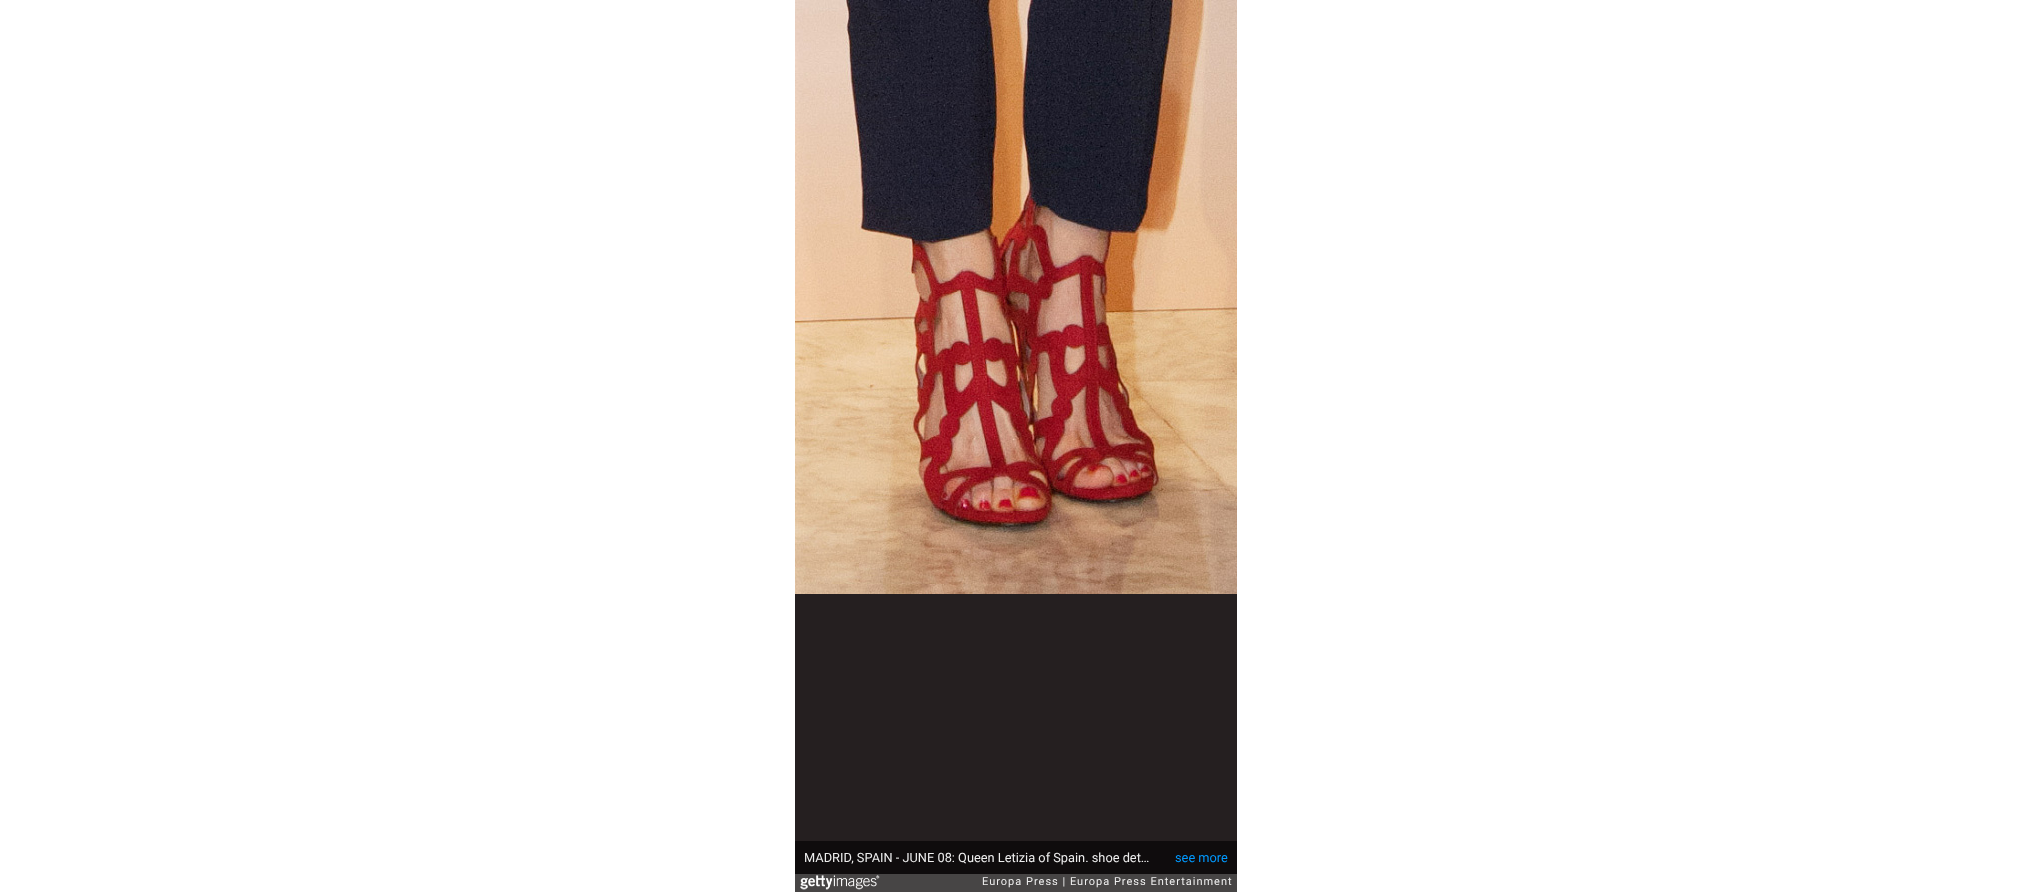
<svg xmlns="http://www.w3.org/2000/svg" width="2032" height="892">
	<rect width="100%" height="100%" fill="#FFFFFF" />
	<rect x="795" y="594" width="442" height="247" fill="#251F20" />
	<image x="795" y="0" width="442" height="594" href="assets/img1.png" />
	<rect x="795" y="841" width="442" height="33" fill="#0F0C0D" />
	<text x="804" y="862" font-family="Roboto" font-size="12.8" fill="#EEEEEE">MADRID, SPAIN - JUNE 08: Queen Letizia of Spain. shoe det…</text>
	<text x="1175" y="862" font-family="Roboto" font-size="12.8" fill="#0099FF">see more</text>
	<rect x="795" y="874" width="442" height="18" fill="#474545" />
	<image x="800" y="875" width="80" height="15" href="assets/img2.png" />
	<text x="982" y="885" font-family="Roboto" font-size="11" letter-spacing="1" fill="#EEEEEE">Europa Press | Europa Press Entertainment</text>
</svg>
